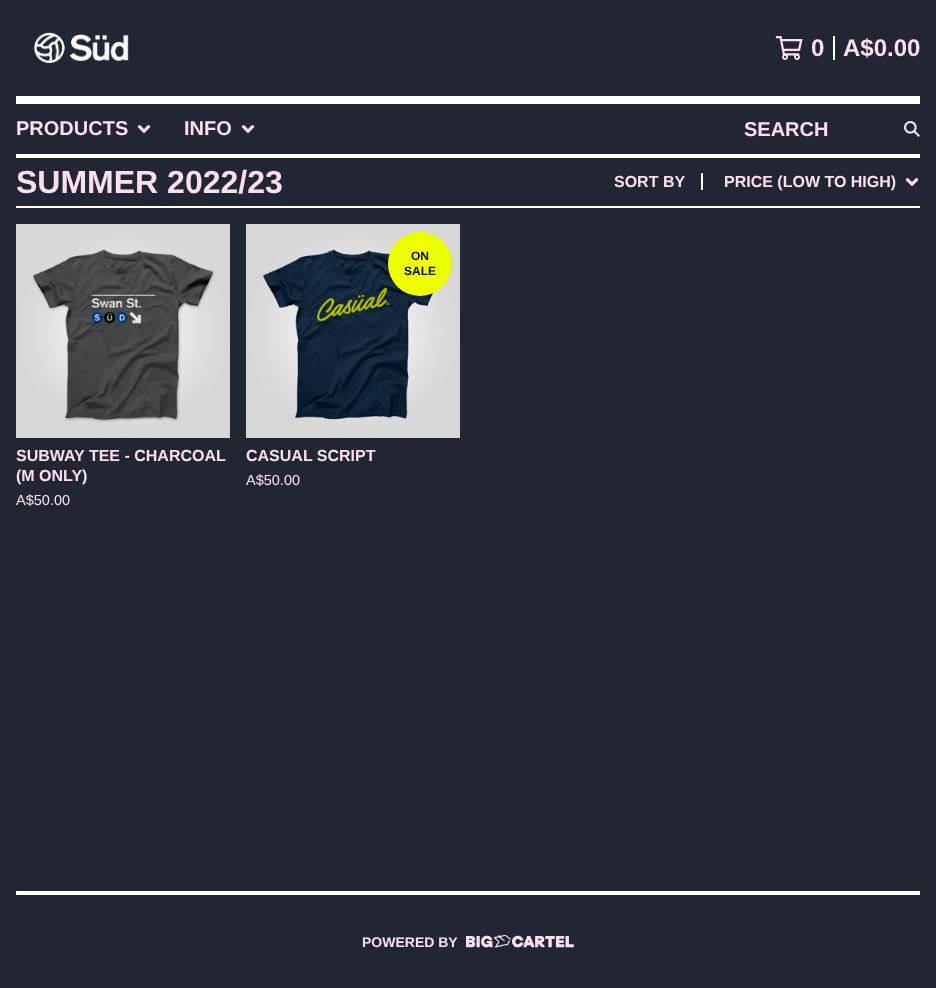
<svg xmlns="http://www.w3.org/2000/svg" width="936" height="988">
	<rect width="100%" height="100%" fill="#222633" />
	<rect x="16" y="96" width="904" height="8" fill="#FFFFFF" />
	<image x="34" y="32" width="95" height="31" href="assets/img1.png" />
	<image x="775" y="36" width="28" height="24" href="assets/img2.png" />
	<rect x="833" y="36" width="2" height="24" fill="#FFFFFF" />
	<g font-family="Liberation Sans" font-size="24" font-weight="700" fill="#F9DFF1">
		<text x="811" y="56">0</text>
		<text x="843" y="56">A$0.00</text>
	</g>
	<rect x="16" y="154" width="904" height="4" fill="#FFFFFF" />
	<text x="16" y="135" font-family="Liberation Sans" font-size="20" font-weight="700" fill="#F9DFF1">PRODUCTS</text>
	<image x="137" y="125" width="14" height="8" href="assets/img3.png" />
	<text x="184" y="135" font-family="Liberation Sans" font-size="20" font-weight="700" fill="#F9DFF1">INFO</text>
	<image x="241" y="125" width="14" height="8" href="assets/img3.png" />
	<text x="744" y="136" font-family="Liberation Sans" font-size="20" font-weight="700" fill="#F9DFF1">SEARCH</text>
	<image x="904" y="121" width="16" height="16" href="assets/img4.png" />
	<rect x="16" y="206" width="904" height="2" fill="#FFFFFF" />
	<text x="16" y="193" font-family="Liberation Sans" font-size="32" font-weight="700" fill="#F9DFF1">SUMMER 2022/23</text>
	<text x="614" y="187" font-family="Liberation Sans" font-size="16" font-weight="700" fill="#F9DFF1">SORT BY</text>
	<rect x="701" y="173" width="2" height="17" fill="#FFFFFF" />
	<text x="724" y="187" font-family="Liberation Sans" font-size="16" font-weight="700" fill="#F9DFF1">PRICE (LOW TO HIGH)</text>
	<image x="905" y="178" width="14" height="8" href="assets/img3.png" />
	<image x="16" y="224" width="214" height="214" href="assets/img5.png" />
	<g font-family="Liberation Sans" font-size="16" font-weight="700" fill="#F9DFF1">
		<text x="16" y="461">SUBWAY TEE - CHARCOAL</text>
		<text x="16" y="481">(M ONLY)</text>
	</g>
	<text x="16" y="505" font-family="Liberation Sans" font-size="14.5" fill="#F9DFF1">A$50.00</text>
	<image x="246" y="224" width="214" height="214" href="assets/img6.png" />
	<circle cx="420" cy="264" r="32" fill="#EEFF00" />
	<g font-family="Liberation Sans" font-size="12" font-weight="700" fill="#0B0B0B">
		<text x="411" y="260">ON</text>
		<text x="404" y="275">SALE</text>
	</g>
	<text x="246" y="461" font-family="Liberation Sans" font-size="16" font-weight="700" fill="#F9DFF1">CASUAL SCRIPT</text>
	<text x="246" y="485" font-family="Liberation Sans" font-size="14.5" fill="#F9DFF1">A$50.00</text>
	<rect x="16" y="891" width="904" height="4" fill="#FFFFFF" />
	<text x="362" y="947" font-family="Liberation Sans" font-size="14" font-weight="700" fill="#F9DFF1">POWERED BY</text>
	<image x="466" y="935" width="108" height="13" href="assets/img7.png" />
</svg>
